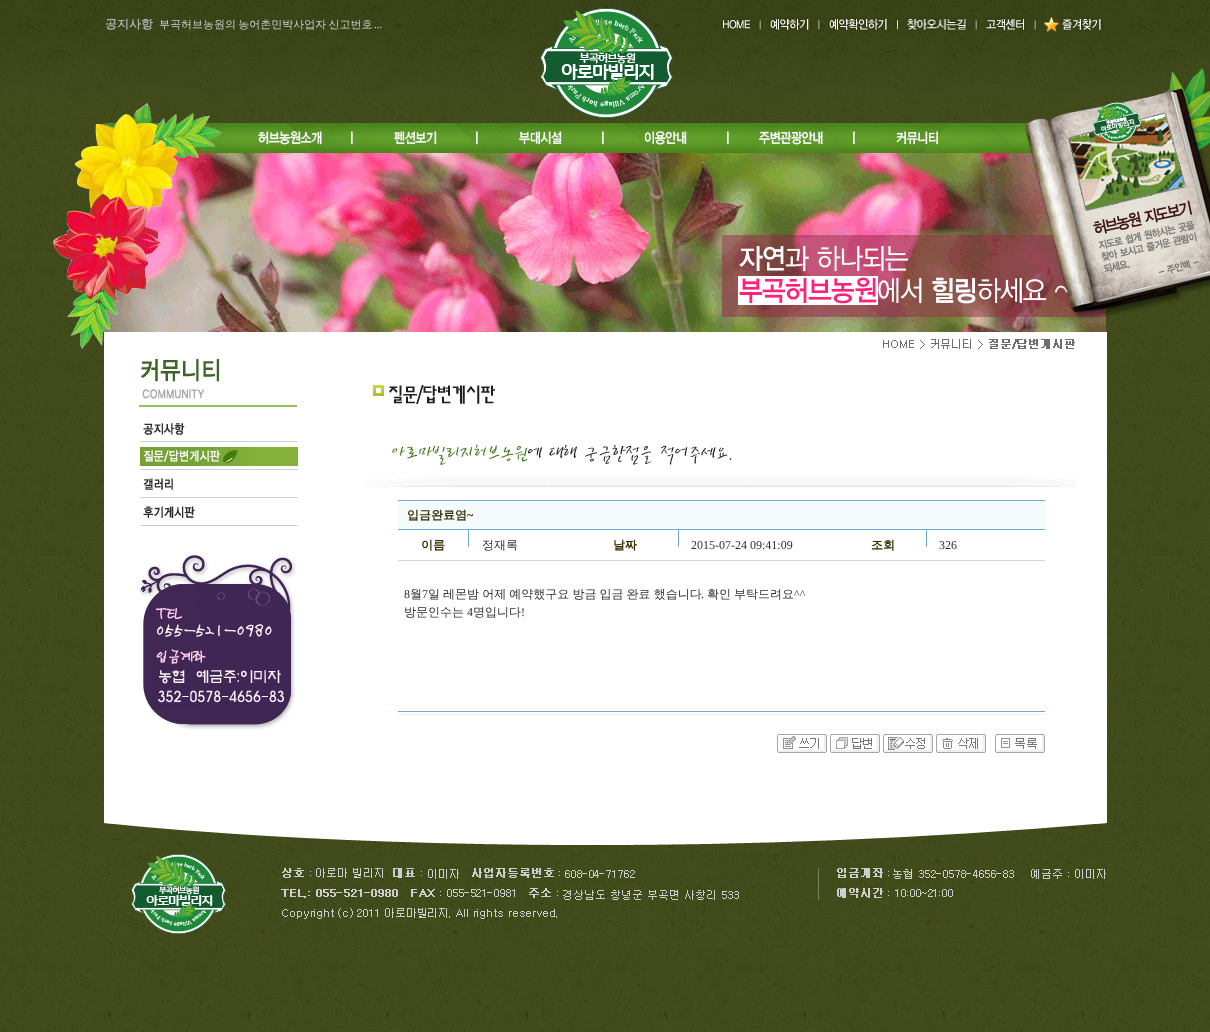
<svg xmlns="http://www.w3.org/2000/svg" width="1210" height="1032">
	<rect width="100%" height="100%" fill="#FFFFFF" />
	<image x="0" y="99" width="1210" height="933" href="assets/img1.png" />
	<image x="0" y="0" width="1210" height="99" href="assets/img2.png" />
	<text x="105" y="28" font-family="WenQuanYi Zen Hei" font-size="12" font-weight="700" fill="#ABB1AC">공지사항</text>
	<text x="159" y="28" word-spacing="-1" font-family="WenQuanYi Zen Hei" font-size="11" font-weight="500" fill="#CDCDCD">부곡허브농원의 농어촌민박사업자 신고번호</text>
	<text x="374" y="28" font-family="Liberation Serif" font-size="11" fill="#CDCDCD">...</text>
	<image x="536" y="0" width="139" height="123" href="assets/img3.png" />
	<image x="717" y="15" width="44" height="19" href="assets/img4.png" />
	<image x="761" y="15" width="59" height="19" href="assets/img5.png" />
	<image x="820" y="15" width="78" height="19" href="assets/img6.png" />
	<image x="898" y="15" width="79" height="19" href="assets/img7.png" />
	<image x="977" y="15" width="60" height="19" href="assets/img8.png" />
	<image x="1037" y="15" width="68" height="19" href="assets/img9.png" />
	<image x="103" y="153" width="1003" height="179" href="assets/img11.png" />
	<image x="103" y="123" width="119" height="30" href="assets/img13.png" />
	<rect x="104" y="332" width="1003" height="458" fill="#FFFFFF" />
	<image x="53" y="103" width="169" height="246" href="assets/img10.png" />
	<image x="990" y="123" width="42" height="30" href="assets/img20.png" />
	<image x="1025" y="68" width="185" height="252" href="assets/img12.png" />
	<image x="222" y="123" width="132" height="30" href="assets/img14.png" />
	<image x="354" y="123" width="126" height="30" href="assets/img15.png" />
	<image x="480" y="123" width="125" height="30" href="assets/img16.png" />
	<image x="605" y="123" width="125" height="30" href="assets/img17.png" />
	<image x="730" y="123" width="127" height="30" href="assets/img18.png" />
	<image x="857" y="123" width="133" height="30" href="assets/img19.png" />
	<image x="139" y="357" width="158" height="50" href="assets/img21.png" />
	<image x="140" y="423" width="158" height="19" href="assets/img22.png" />
	<image x="140" y="447" width="158" height="23" href="assets/img23.png" />
	<image x="140" y="478" width="158" height="20" href="assets/img24.png" />
	<image x="140" y="506" width="158" height="20" href="assets/img25.png" />
	<image x="140" y="553" width="156" height="177" href="assets/img26.png" />
	<image x="365" y="339" width="712" height="149" href="assets/img27.png" />
	<rect x="398" y="500" width="647" height="1" fill="#73A9CE" />
	<rect x="398" y="501" width="647" height="28" fill="#F3FBFD" />
	<text x="407" y="519" font-family="WenQuanYi Zen Hei" font-size="12" font-weight="700" fill="#312C00">입금완료염</text>
	<text x="467" y="519" font-family="Liberation Serif" font-size="12" font-weight="700" fill="#312C00">~</text>
	<rect x="398" y="529" width="647" height="1" fill="#73A9CE" />
	<text x="421" y="549" font-family="WenQuanYi Zen Hei" font-size="12" font-weight="700" fill="#312C00">이름</text>
	<rect x="468" y="530" width="1" height="17" fill="#73A9CE" />
	<text x="482" y="549" font-family="WenQuanYi Zen Hei" font-size="12" font-weight="500" fill="#2E2E2E">정재록</text>
	<text x="613" y="549" font-family="WenQuanYi Zen Hei" font-size="12" font-weight="700" fill="#312C00">날짜</text>
	<rect x="678" y="530" width="1" height="17" fill="#73A9CE" />
	<text x="691" y="549" font-family="Liberation Serif" font-size="12" fill="#2E2E2E">2015-07-24 09:41:09</text>
	<text x="871" y="549" font-family="WenQuanYi Zen Hei" font-size="12" font-weight="700" fill="#312C00">조회</text>
	<rect x="926" y="530" width="1" height="17" fill="#73A9CE" />
	<text x="939" y="549" font-family="Liberation Serif" font-size="12" fill="#2E2E2E">326</text>
	<rect x="398" y="560" width="647" height="1" fill="#D4D4D4" />
	<text x="404" y="598" font-family="Liberation Serif" font-size="12" fill="#2E2E2E">8</text>
	<text x="410" y="598" font-family="WenQuanYi Zen Hei" font-size="12" font-weight="500" fill="#2E2E2E">월</text>
	<text x="422" y="598" font-family="Liberation Serif" font-size="12" fill="#2E2E2E">7</text>
	<g font-family="WenQuanYi Zen Hei" font-size="12" font-weight="500" fill="#2E2E2E">
		<text x="428" y="598" word-spacing="-0.5">일 레몬밤 어제 예약했구요 방금 입금 완료 했습니다</text>
		<text x="707" y="598" word-spacing="-0.5">확인 부탁드려요</text>
	</g>
	<g font-family="Liberation Serif" font-size="12" fill="#2E2E2E">
		<text x="794" y="598">^^</text>
		<text x="701" y="598">.</text>
	</g>
	<text x="404" y="616" font-family="WenQuanYi Zen Hei" font-size="12" font-weight="500" fill="#2E2E2E">방문인수는</text>
	<text x="467" y="616" font-family="Liberation Serif" font-size="12" fill="#2E2E2E">4</text>
	<text x="473" y="616" font-family="WenQuanYi Zen Hei" font-size="12" font-weight="500" fill="#2E2E2E">명입니다</text>
	<text x="521" y="616" font-family="Liberation Serif" font-size="12" fill="#2E2E2E">!</text>
	<rect x="398" y="711" width="647" height="1" fill="#73A9CE" />
	<rect x="398" y="714" width="647" height="1" fill="#EEEEEE" />
	<image x="777" y="734" width="50" height="19" href="assets/img28.png" />
	<image x="830" y="734" width="50" height="19" href="assets/img29.png" />
	<image x="883" y="734" width="50" height="19" href="assets/img30.png" />
	<image x="936" y="734" width="50" height="19" href="assets/img31.png" />
	<image x="995" y="734" width="50" height="19" href="assets/img32.png" />
	<image x="104" y="790" width="1003" height="63" href="assets/img33.png" />
	<image x="54" y="853" width="1103" height="95" href="assets/img34.png" />
</svg>
